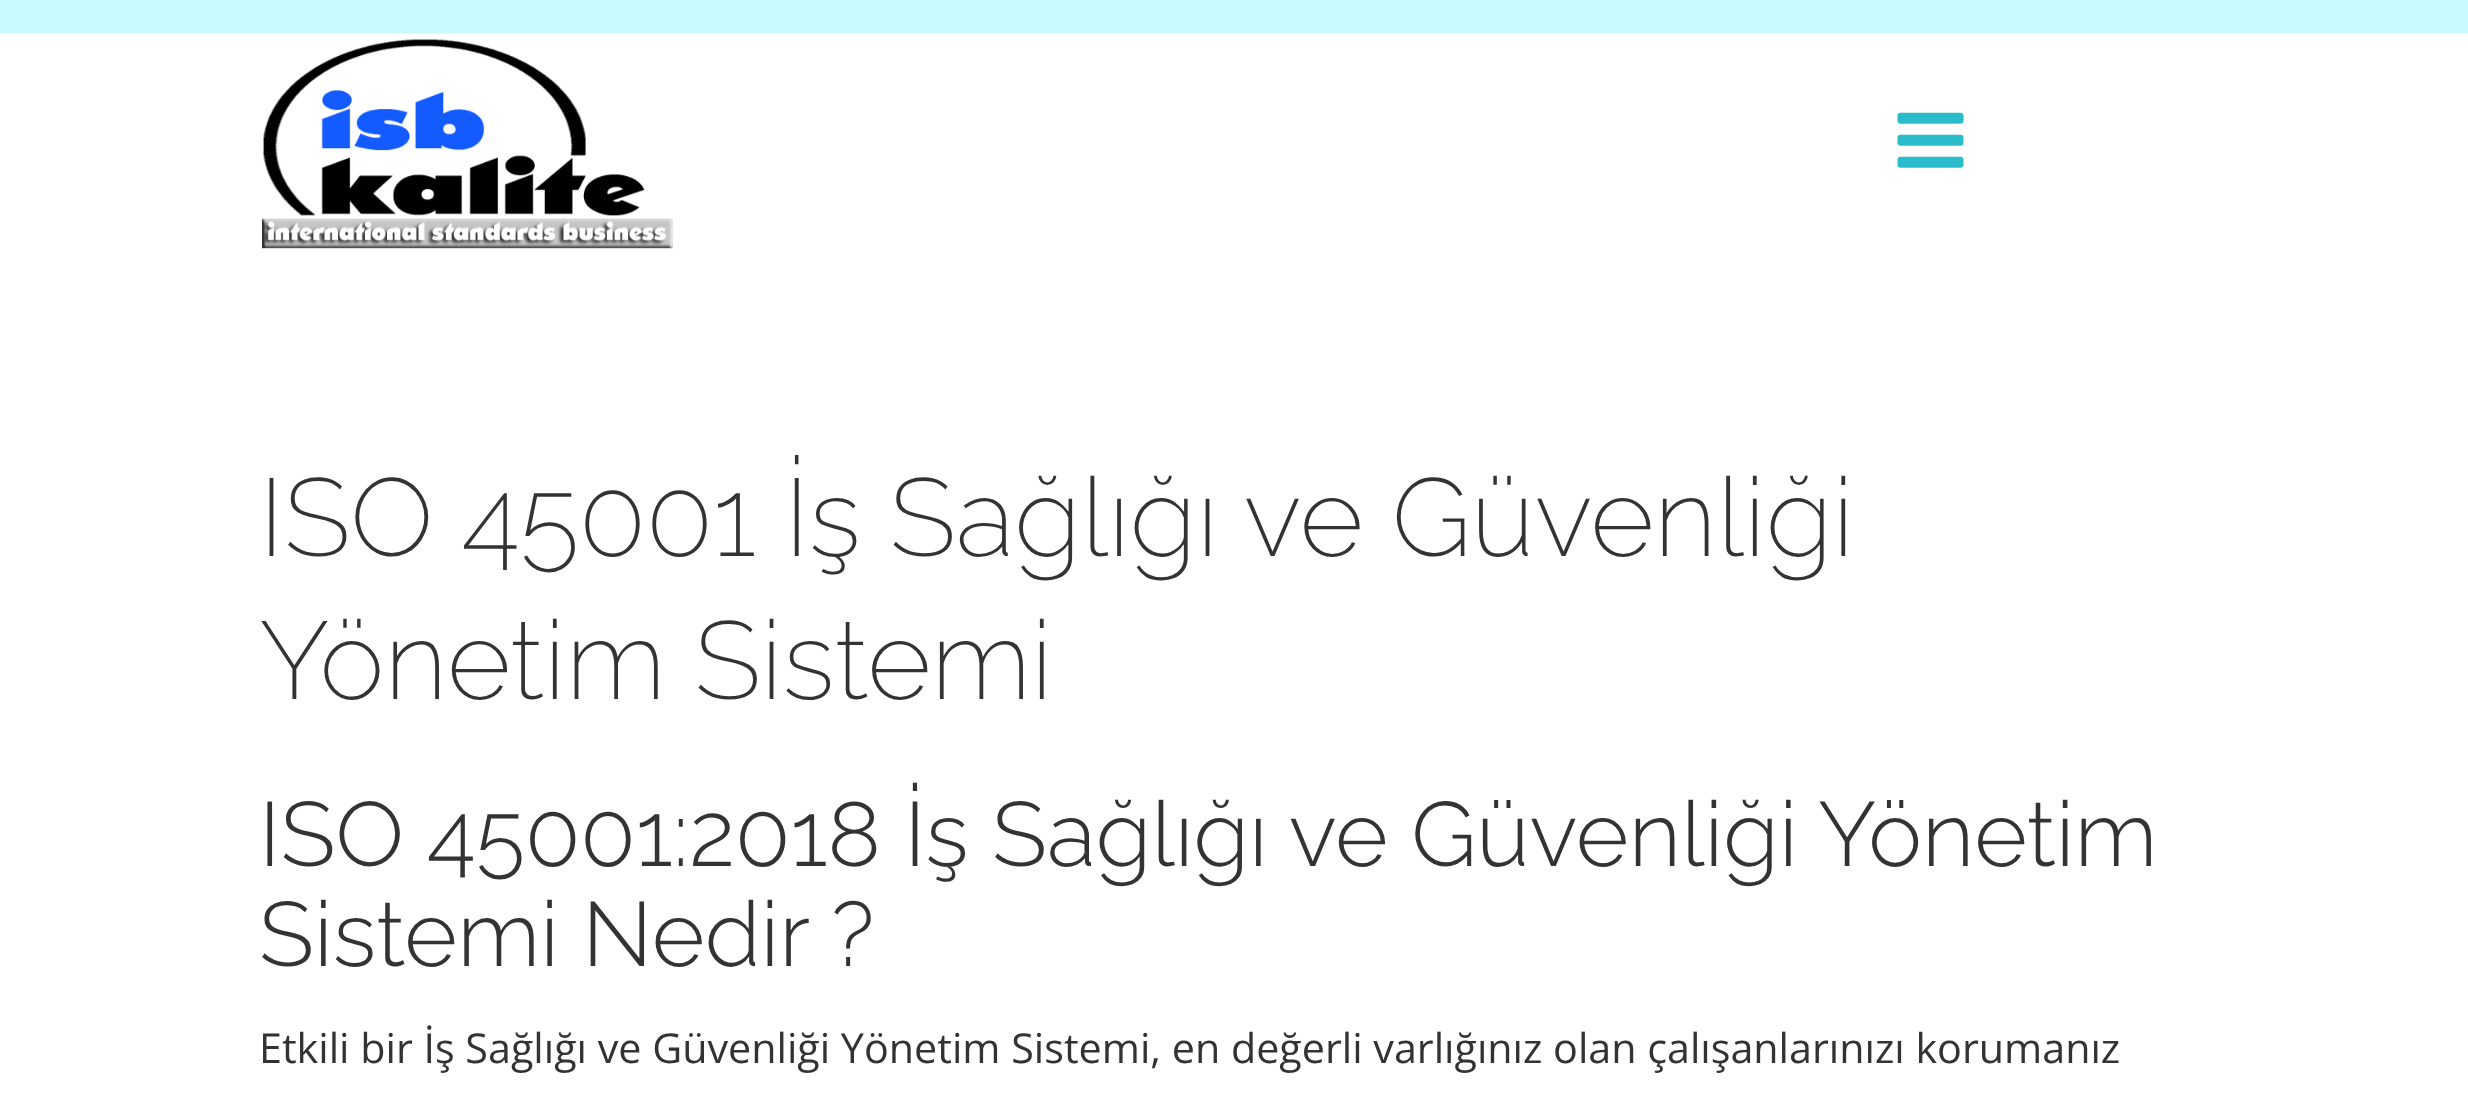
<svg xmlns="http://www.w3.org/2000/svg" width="2468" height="1093">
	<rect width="100%" height="100%" fill="#FFFFFF" />
	<rect x="0" y="0" width="2468" height="33" fill="#C8FAFF" />
	<image x="262" y="39" width="411" height="210" href="assets/img1.png" />
	<image x="1897" y="112" width="67" height="56" href="assets/img2.png" />
	<g font-family="Raleway" font-size="110" font-weight="200" fill="#333333">
		<text x="259" y="556">ISO 45001 İş Sağlığı ve Güvenliği</text>
		<text x="259" y="699">Yönetim Sistemi</text>
	</g>
	<g font-family="Raleway" font-size="90.75" font-weight="300" fill="#333333">
		<text x="259" y="866">ISO 45001:2018 İş Sağlığı ve Güvenliği Yönetim</text>
		<text x="259" y="966">Sistemi Nedir ?</text>
	</g>
	<text x="259" y="1063" font-family="Open Sans" font-size="41.25" fill="#333333">Etkili bir İş Sağlığı ve Güvenliği Yönetim Sistemi, en değerli varlığınız olan çalışanlarınızı korumanız</text>
</svg>
